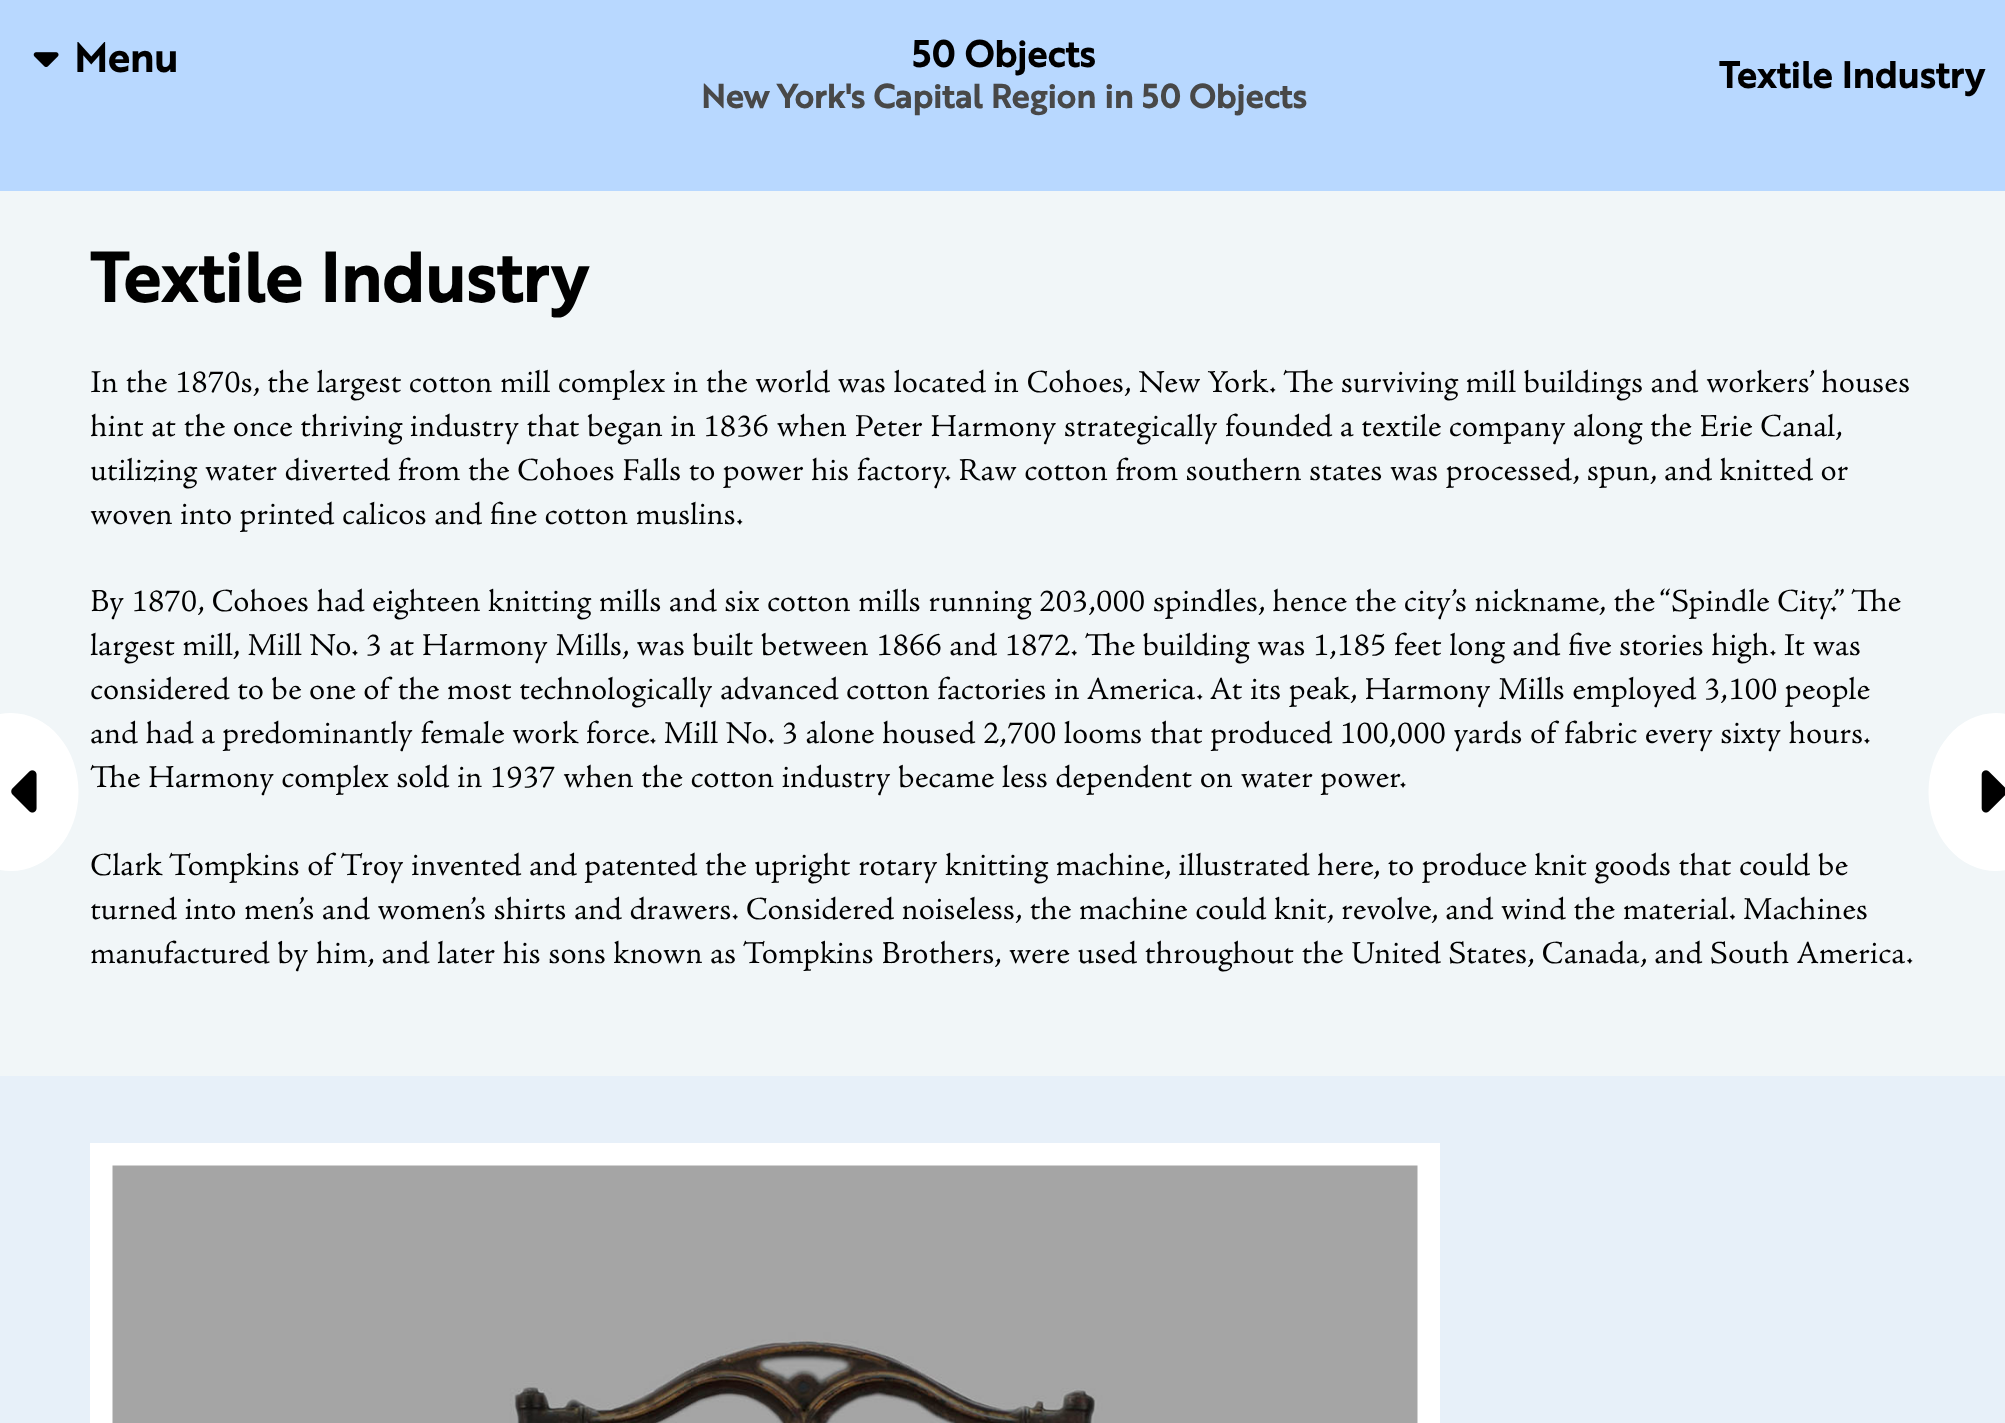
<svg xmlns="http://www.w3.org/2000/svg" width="2005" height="1423">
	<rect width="100%" height="100%" fill="#F1F6F8" />
	<rect x="0" y="0" width="2005" height="191" fill="#B8D8FF" />
	<image x="33" y="52" width="26" height="15" href="assets/img1.png" />
	<text x="74" y="72" font-family="'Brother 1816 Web'" font-size="39.5" font-weight="700" fill="#000000">Menu</text>
	<text x="912" y="67" font-family="'Brother 1816 Web'" font-size="36" font-weight="700" fill="#000000">50 Objects</text>
	<text x="701" y="108" font-family="'Brother 1816 Web'" font-size="32.4" font-weight="700" fill="#484848">New York's Capital Region in 50 Objects</text>
	<text x="1719" y="88" font-family="'Brother 1816 Web'" font-size="36" font-weight="700" fill="#000000">Textile Industry</text>
	<text x="90" y="302" font-family="'Brother 1816 Web'" font-size="67.5" font-weight="700" fill="#000000">Textile Industry</text>
	<g font-family="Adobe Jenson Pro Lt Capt" font-size="31.5" font-weight="300" fill="#000000">
		<text x="90" y="392">In the 1870s, the largest cotton mill complex in the world was located in Cohoes, New York. The surviving mill buildings and workers’ houses</text>
		<text x="90" y="436">hint at the once thriving industry that began in 1836 when Peter Harmony strategically founded a textile company along the Erie Canal,</text>
		<text x="90" y="480">utilizing water diverted from the Cohoes Falls to power his factory. Raw cotton from southern states was processed, spun, and knitted or</text>
		<text x="90" y="524">woven into printed calicos and fine cotton muslins.</text>
		<text x="90" y="611">By 1870, Cohoes had eighteen knitting mills and six cotton mills running 203,000 spindles, hence the city’s nickname, the “Spindle City.” The</text>
		<text x="90" y="655">largest mill, Mill No. 3 at Harmony Mills, was built between 1866 and 1872. The building was 1,185 feet long and five stories high. It was</text>
		<text x="90" y="699">considered to be one of the most technologically advanced cotton factories in America. At its peak, Harmony Mills employed 3,100 people</text>
		<text x="90" y="743">and had a predominantly female work force. Mill No. 3 alone housed 2,700 looms that produced 100,000 yards of fabric every sixty hours.</text>
		<text x="90" y="787">The Harmony complex sold in 1937 when the cotton industry became less dependent on water power.</text>
		<text x="90" y="875">Clark Tompkins of Troy invented and patented the upright rotary knitting machine, illustrated here, to produce knit goods that could be</text>
		<text x="90" y="919">turned into men’s and women’s shirts and drawers. Considered noiseless, the machine could knit, revolve, and wind the material. Machines</text>
		<text x="90" y="963">manufactured by him, and later his sons known as Tompkins Brothers, were used throughout the United States, Canada, and South America.</text>
	</g>
	<rect x="0" y="1076" width="2005" height="347" fill="#E7F0F9" />
	<rect x="90" y="1143" width="1350" height="280" fill="#FFFFFF" />
	<image x="112" y="1165" width="1306" height="258" href="assets/img2.png" />
	<ellipse cx="11" cy="792" rx="67.5" ry="79" fill="#FFFFFF" />
	<image x="11" y="770" width="26" height="43" href="assets/img3.png" />
	<ellipse cx="1996" cy="792" rx="67.5" ry="79" fill="#FFFFFF" />
	<image x="1981" y="770" width="24" height="43" href="assets/img4.png" />
</svg>
